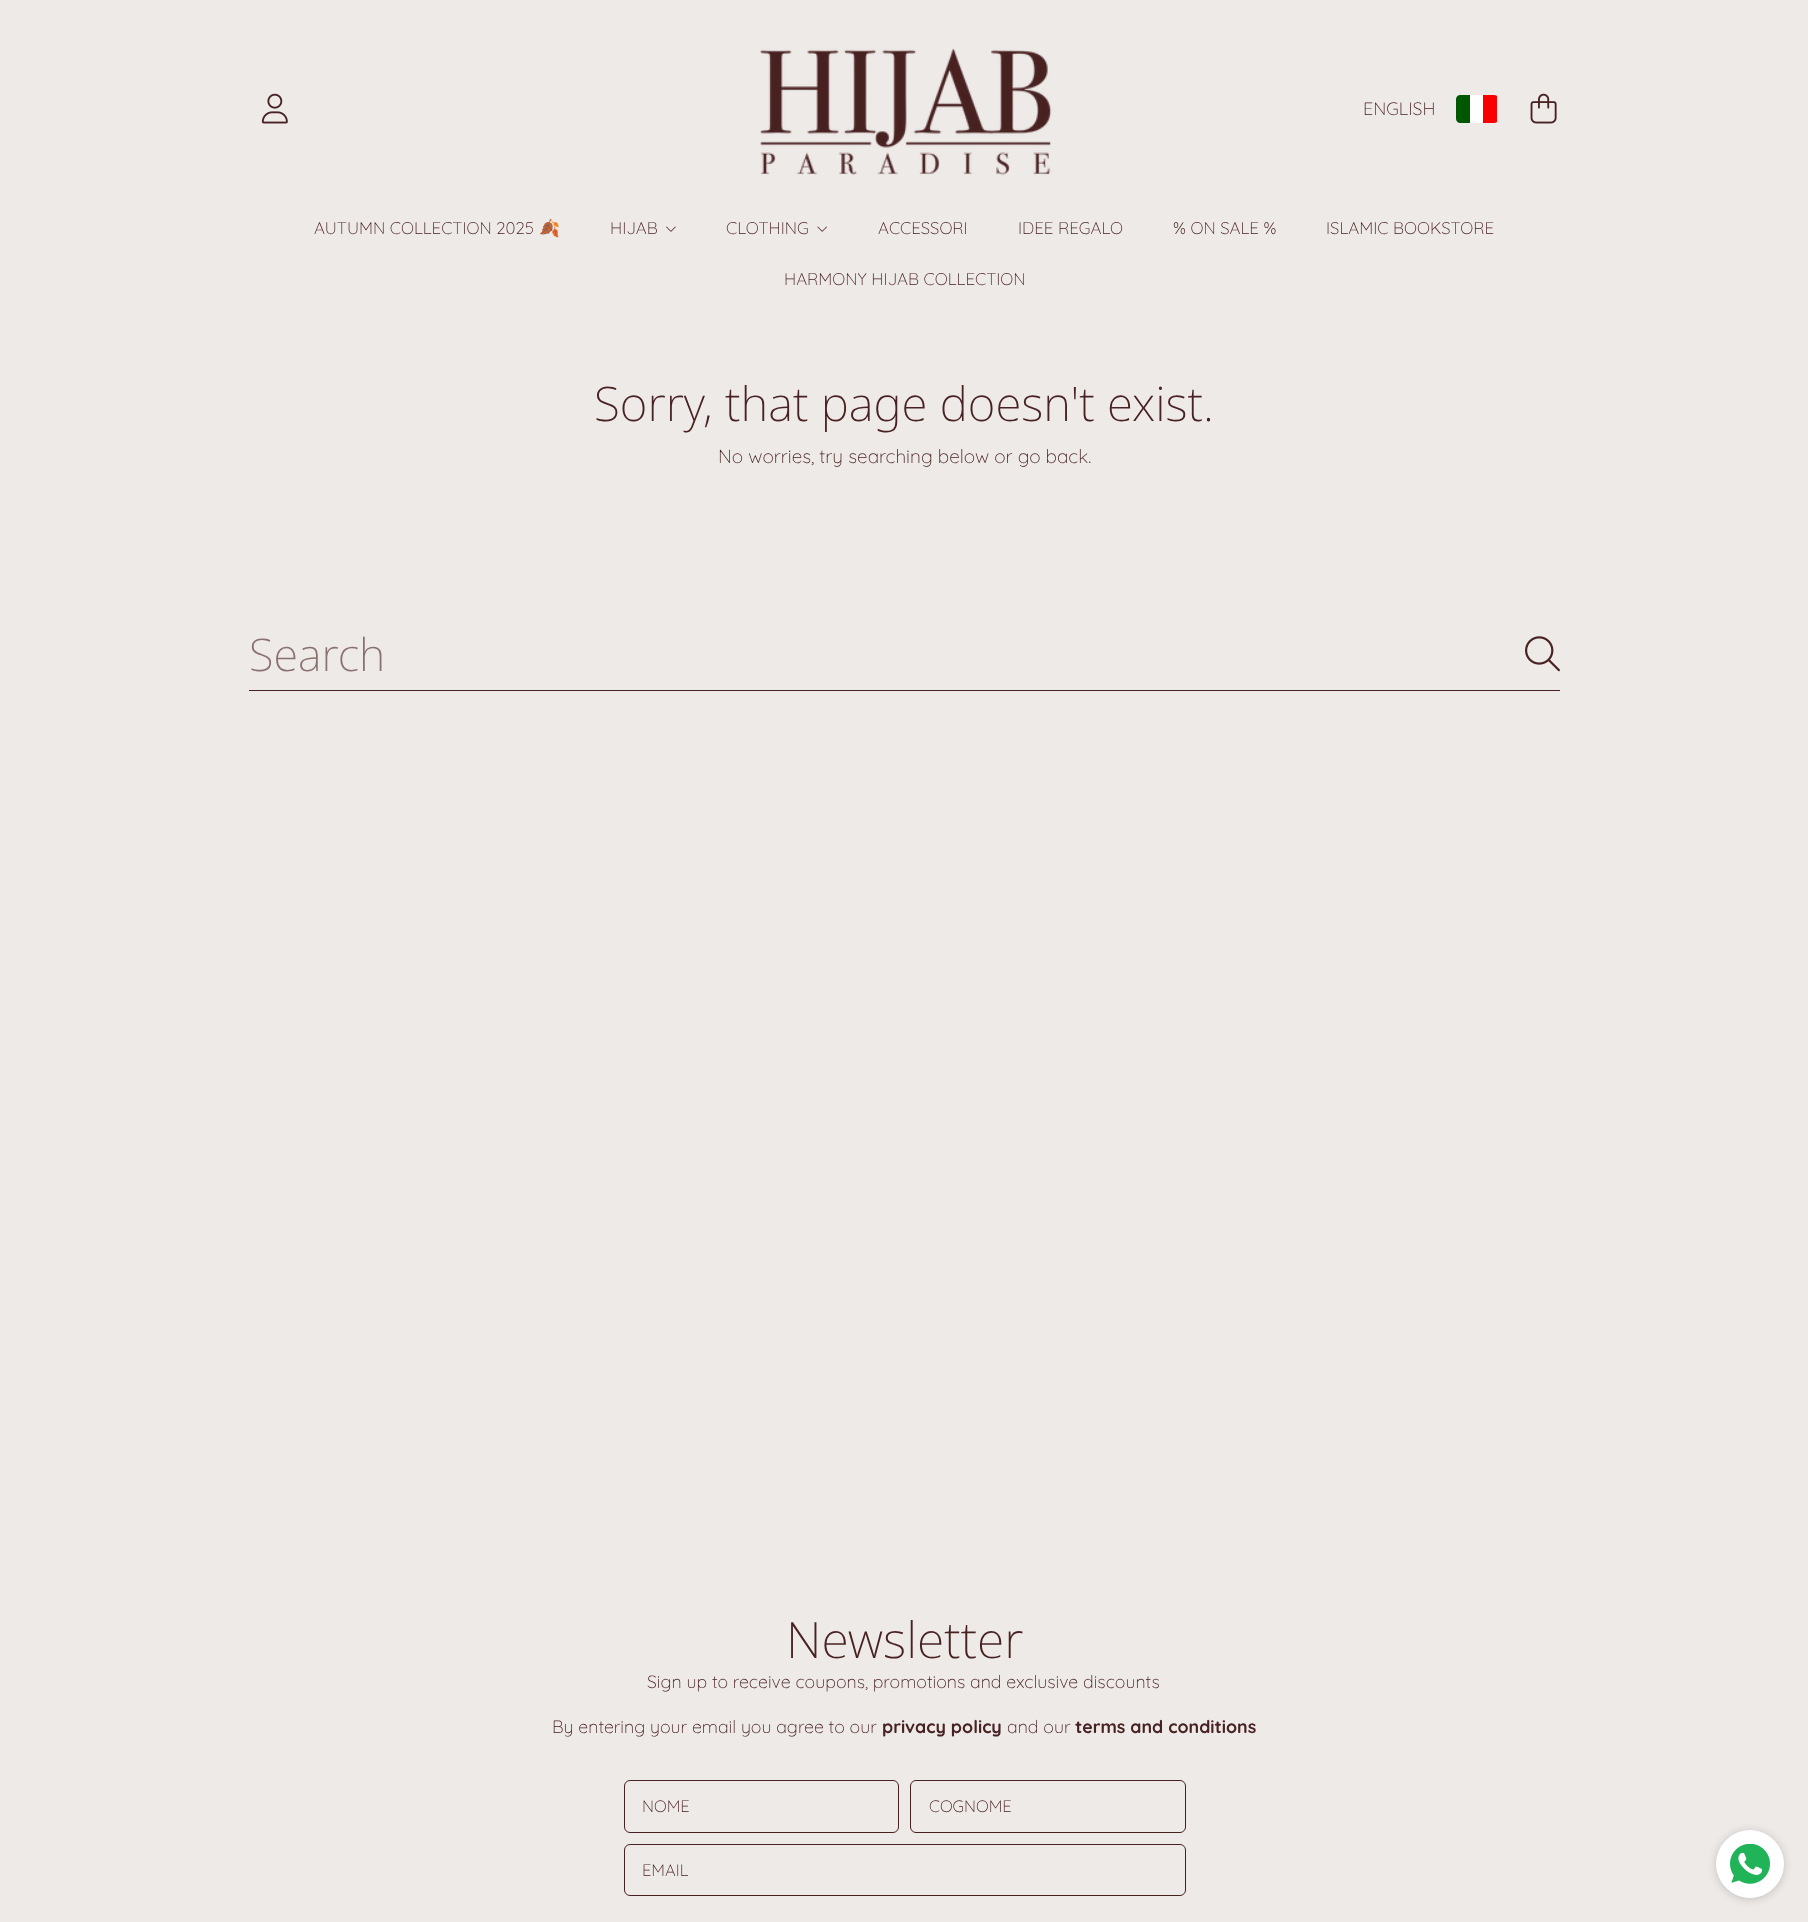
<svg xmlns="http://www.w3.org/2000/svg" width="1808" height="1922">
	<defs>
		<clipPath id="clip1"><rect x="1456" y="95" width="42" height="28" rx="4" /></clipPath>
	</defs>
	<rect width="100%" height="100%" fill="#EEEAE8" />
	<image x="261" y="93" width="27" height="31" href="assets/img1.png" />
	<image x="760" y="48" width="292" height="128" href="assets/img2.png" />
	<text x="1363" y="115" font-family="Quicksand" font-size="18" font-weight="300" fill="#482122">ENGLISH</text>
	<g clip-path="url(#clip1)">
		<path d="M1460 95H1497V123H1460C1458 123 1456 121 1456 119V99C1456 97 1458 95 1460 95Z" fill="#FFFFFF" />
	</g>
	<path d="M1460 95H1470V123H1460C1458 123 1456 121 1456 119V99C1456 97 1458 95 1460 95Z" fill="#005700" />
	<g clip-path="url(#clip1)">
		<rect x="1483" y="95" width="14" height="28" fill="#FC0000" />
	</g>
	<image x="1530" y="93" width="27" height="31" href="assets/img3.png" />
	<text x="314" y="234" font-family="Quicksand" font-size="16.9" font-weight="300" fill="#482122">AUTUMN COLLECTION 2025</text>
	<text x="539" y="234" font-family="Noto Color Emoji" font-size="16.9" fill="#482122">🍂</text>
	<text x="610" y="234" font-family="Quicksand" font-size="16.9" font-weight="300" fill="#482122">HIJAB</text>
	<image x="666" y="226" width="10" height="6" href="assets/img4.png" />
	<text x="726" y="234" font-family="Quicksand" font-size="16.9" font-weight="300" fill="#482122">CLOTHING</text>
	<image x="817" y="226" width="10" height="6" href="assets/img5.png" />
	<g font-family="Quicksand" font-size="16.9" font-weight="300" fill="#482122">
		<text x="878" y="234">ACCESSORI</text>
		<text x="1018" y="234">IDEE REGALO</text>
		<text x="1173" y="234">% ON SALE %</text>
		<text x="1326" y="234">ISLAMIC BOOKSTORE</text>
		<text x="784" y="285">HARMONY HIJAB COLLECTION</text>
	</g>
	<text x="594" y="421" font-family="Noto Sans" font-size="47.5" font-weight="200" fill="#482122">Sorry, that page doesn't exist.</text>
	<text x="718" y="463" font-family="Quicksand" font-size="19" font-weight="300" fill="#482122">No worries, try searching below or go back.</text>
	<rect x="249" y="690" width="1311" height="1" fill="#482122" />
	<text x="249" y="671" font-family="Noto Sans" font-size="45" font-weight="200" fill="#8A7171">Search</text>
	<image x="1525" y="636" width="35" height="36" href="assets/img6.png" />
	<text x="786" y="1658" font-family="Noto Sans" font-size="50" font-weight="200" fill="#482122">Newsletter</text>
	<g font-family="Quicksand" font-size="17.8" font-weight="300" fill="#482122">
		<text x="647" y="1688">Sign up to receive coupons, promotions and exclusive discounts</text>
		<text x="552" y="1733">By entering your email you agree to our</text>
	</g>
	<text x="882" y="1733" font-family="Quicksand" font-size="17.8" font-weight="700" fill="#482122">privacy policy</text>
	<text x="1007" y="1733" font-family="Quicksand" font-size="17.8" font-weight="300" fill="#482122">and our</text>
	<text x="1075" y="1733" font-family="Quicksand" font-size="17.8" font-weight="700" fill="#482122">terms and conditions</text>
	<rect x="624.5" y="1780.5" width="274" height="52" rx="5.5" fill="none" stroke="#482122" />
	<text x="642" y="1812" font-family="Quicksand" font-size="16.5" font-weight="300" fill="#482122">NOME</text>
	<rect x="910.5" y="1780.5" width="275" height="52" rx="5.5" fill="none" stroke="#482122" />
	<text x="929" y="1812" font-family="Quicksand" font-size="16.5" font-weight="300" fill="#482122">COGNOME</text>
	<rect x="624.5" y="1844.5" width="561" height="51" rx="5.5" fill="none" stroke="#482122" />
	<text x="642" y="1876" font-family="Quicksand" font-size="16.5" font-weight="300" fill="#482122">EMAIL</text>
	<rect x="1716" y="1831" width="68" height="68" rx="34" fill="#1B1B1B" fill-opacity="0.2" filter="blur(4px)" />
	<circle cx="1750" cy="1864" r="33.5" fill="#FFFFFF" stroke="#FFFFFF" />
	<image x="1730" y="1844" width="40" height="40" href="assets/img7.png" />
</svg>
